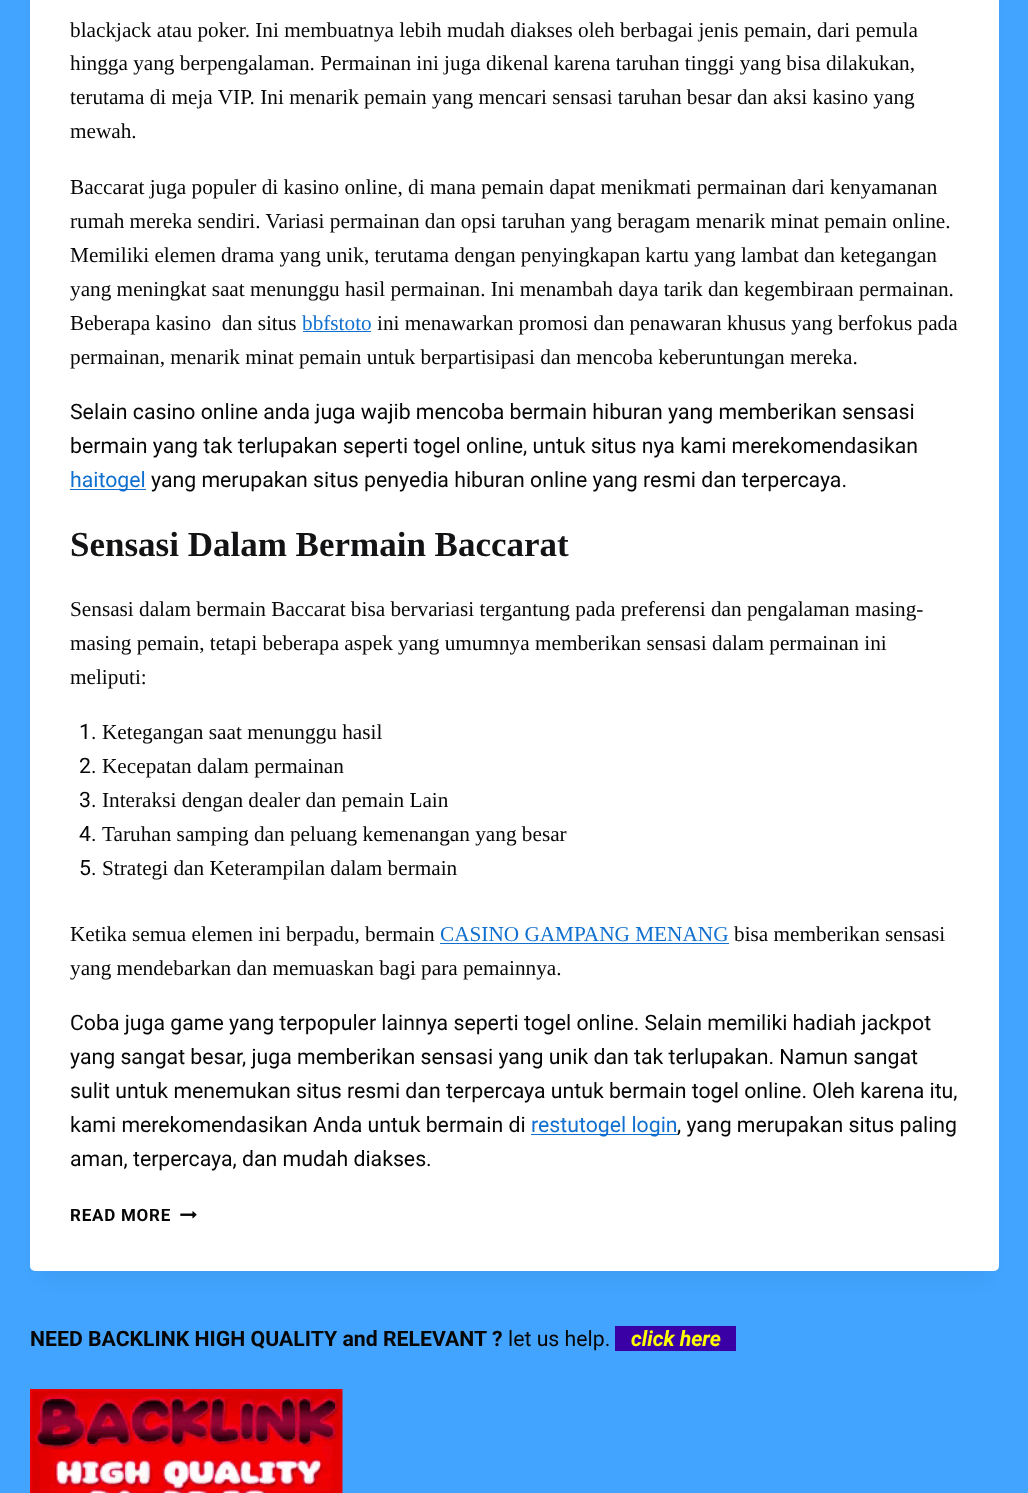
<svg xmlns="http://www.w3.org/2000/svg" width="1028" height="1493">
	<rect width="100%" height="100%" fill="#42A4FF" />
	<rect x="43" y="-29" width="943" height="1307" fill="#000000" fill-opacity="0.05" filter="blur(9.5px)" />
	<rect x="30" y="-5" width="969" height="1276" rx="5" fill="#FFFFFF" />
	<g font-family="Liberation Serif" font-size="21.25" fill="#060606">
		<text x="70" y="37">blackjack atau poker. Ini membuatnya lebih mudah diakses oleh berbagai jenis pemain, dari pemula</text>
		<text x="70" y="70">hingga yang berpengalaman. Permainan ini juga dikenal karena taruhan tinggi yang bisa dilakukan,</text>
		<text x="70" y="104">terutama di meja VIP. Ini menarik pemain yang mencari sensasi taruhan besar dan aksi kasino yang</text>
		<text x="70" y="138">mewah.</text>
		<text x="70" y="194">Baccarat juga populer di kasino online, di mana pemain dapat menikmati permainan dari kenyamanan</text>
		<text x="70" y="228">rumah mereka sendiri. Variasi permainan dan opsi taruhan yang beragam menarik minat pemain online.</text>
		<text x="70" y="262">Memiliki elemen drama yang unik, terutama dengan penyingkapan kartu yang lambat dan ketegangan</text>
		<text x="70" y="296">yang meningkat saat menunggu hasil permainan. Ini menambah daya tarik dan kegembiraan permainan.</text>
		<text x="70" y="330" xml:space="preserve">Beberapa kasino  dan situs</text>
	</g>
	<text x="302" y="330" font-family="Liberation Serif" font-size="21.25" fill="#1170CF">bbfstoto</text>
	<rect x="303" y="331" width="68" height="1" fill="#1170CF" />
	<g font-family="Liberation Serif" font-size="21.25" fill="#060606">
		<text x="377" y="330">ini menawarkan promosi dan penawaran khusus yang berfokus pada</text>
		<text x="70" y="364">permainan, menarik minat pemain untuk berpartisipasi dan mencoba keberuntungan mereka.</text>
	</g>
	<g font-family="Roboto" font-size="21.25" fill="#060606">
		<text x="70" y="419">Selain casino online anda juga wajib mencoba bermain hiburan yang memberikan sensasi</text>
		<text x="70" y="453">bermain yang tak terlupakan seperti togel online, untuk situs nya kami merekomendasikan</text>
	</g>
	<rect x="70" y="489" width="76" height="1" fill="#1170CF" />
	<text x="70" y="487" font-family="Roboto" font-size="21.25" fill="#1170CF">haitogel</text>
	<text x="151" y="487" font-family="Roboto" font-size="21.25" fill="#060606">yang merupakan situs penyedia hiburan online yang resmi dan terpercaya.</text>
	<text x="70" y="556" font-family="Liberation Serif" font-size="35" font-weight="700" fill="#131315">Sensasi Dalam Bermain Baccarat</text>
	<g font-family="Liberation Serif" font-size="21.25" fill="#060606">
		<text x="70" y="616">Sensasi dalam bermain Baccarat bisa bervariasi tergantung pada preferensi dan pengalaman masing-</text>
		<text x="70" y="650">masing pemain, tetapi beberapa aspek yang umumnya memberikan sensasi dalam permainan ini</text>
		<text x="70" y="684">meliputi:</text>
	</g>
	<text x="79" y="739" font-family="Roboto" font-size="21.25" fill="#060606">1.</text>
	<text x="102" y="739" font-family="Liberation Serif" font-size="21.25" fill="#060606">Ketegangan saat menunggu hasil</text>
	<text x="79" y="773" font-family="Roboto" font-size="21.25" fill="#060606">2.</text>
	<text x="102" y="773" font-family="Liberation Serif" font-size="21.25" fill="#060606">Kecepatan dalam permainan</text>
	<text x="79" y="807" font-family="Roboto" font-size="21.25" fill="#060606">3.</text>
	<text x="102" y="807" font-family="Liberation Serif" font-size="21.25" fill="#060606">Interaksi dengan dealer dan pemain Lain</text>
	<text x="79" y="841" font-family="Roboto" font-size="21.25" fill="#060606">4.</text>
	<text x="102" y="841" font-family="Liberation Serif" font-size="21.25" fill="#060606">Taruhan samping dan peluang kemenangan yang besar</text>
	<text x="79" y="875" font-family="Roboto" font-size="21.25" fill="#060606">5.</text>
	<g font-family="Liberation Serif" font-size="21.25" fill="#060606">
		<text x="102" y="875">Strategi dan Keterampilan dalam bermain</text>
		<text x="70" y="941">Ketika semua elemen ini berpadu, bermain</text>
	</g>
	<text x="440" y="941" font-family="Liberation Serif" font-size="21.25" fill="#1170CF">CASINO GAMPANG MENANG</text>
	<rect x="440" y="943" width="289" height="1" fill="#1170CF" />
	<g font-family="Liberation Serif" font-size="21.25" fill="#060606">
		<text x="734" y="941">bisa memberikan sensasi</text>
		<text x="70" y="975">yang mendebarkan dan memuaskan bagi para pemainnya.</text>
	</g>
	<g font-family="Roboto" font-size="21.25" fill="#060606">
		<text x="70" y="1030">Coba juga game yang terpopuler lainnya seperti togel online. Selain memiliki hadiah jackpot</text>
		<text x="70" y="1064">yang sangat besar, juga memberikan sensasi yang unik dan tak terlupakan. Namun sangat</text>
		<text x="70" y="1098">sulit untuk menemukan situs resmi dan terpercaya untuk bermain togel online. Oleh karena itu,</text>
		<text x="70" y="1132">kami merekomendasikan Anda untuk bermain di</text>
	</g>
	<rect x="531" y="1134" width="147" height="1" fill="#1170CF" />
	<text x="531" y="1132" font-family="Roboto" font-size="21.25" fill="#1170CF">restutogel login</text>
	<g font-family="Roboto" font-size="21.25" fill="#060606">
		<text x="677" y="1132">, yang merupakan situs paling</text>
		<text x="70" y="1166">aman, terpercaya, dan mudah diakses.</text>
	</g>
	<text x="70" y="1221" font-family="Roboto" font-size="17" font-weight="700" letter-spacing="0.75" fill="#060606">READ MORE</text>
	<image x="180" y="1211" width="17" height="8" href="assets/img1.png" />
	<text x="30" y="1346" font-family="Roboto" font-size="21.25" font-weight="700" fill="#060606">NEED BACKLINK HIGH QUALITY and RELEVANT ?</text>
	<text x="508" y="1346" font-family="Roboto" font-size="21.25" fill="#060606">let us help.</text>
	<rect x="615" y="1326" width="121" height="25" fill="#3A00A6" />
	<text x="631" y="1346" font-family="Roboto" font-size="21.25" font-weight="700" font-style="italic" fill="#FFFF00">click here</text>
	<image x="30" y="1389" width="313" height="104" href="assets/img2.png" />
</svg>
